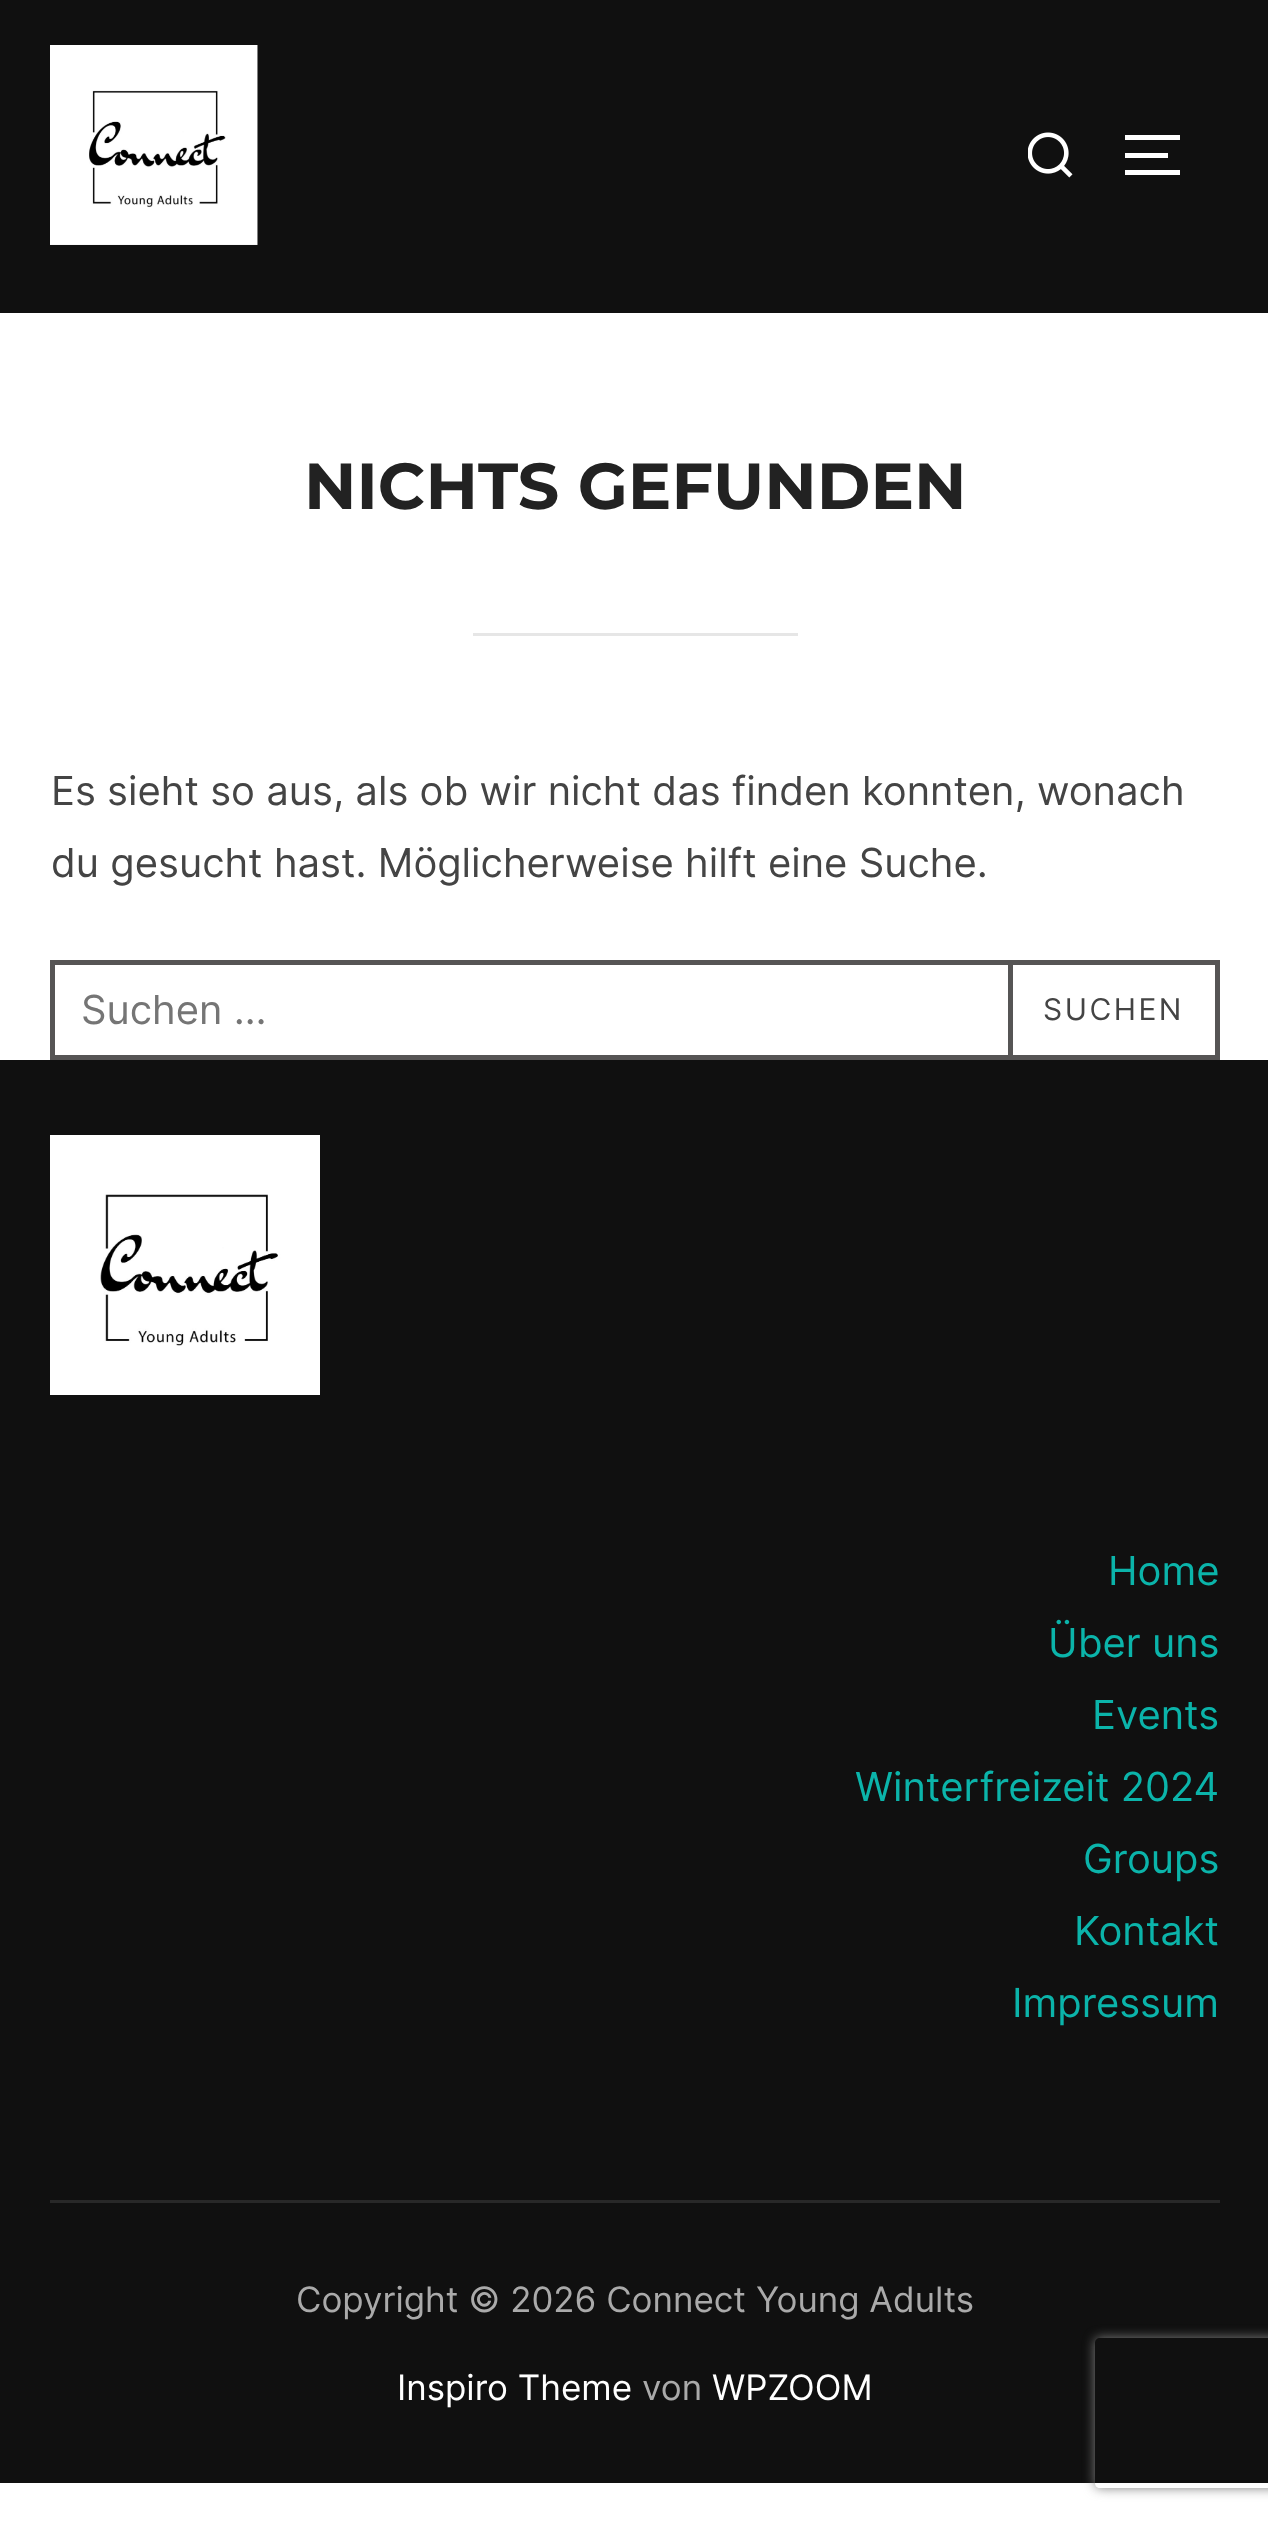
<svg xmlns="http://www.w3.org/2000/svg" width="1268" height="2521">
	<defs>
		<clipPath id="clip1"><path d="M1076 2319H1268V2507H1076ZM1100 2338H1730C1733 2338 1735 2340 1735 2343V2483C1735 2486 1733 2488 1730 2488H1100C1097 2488 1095 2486 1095 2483V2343C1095 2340 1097 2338 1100 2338Z" clip-rule="evenodd" /></clipPath>
	</defs>
	<rect width="100%" height="100%" fill="#FFFFFF" />
	<rect x="0" y="0" width="1268" height="313" fill="#101010" />
	<image x="50" y="45" width="208" height="200" href="assets/img1.png" />
	<image x="1028" y="132" width="45" height="46" href="assets/img2.png" />
	<rect x="1125" y="135" width="55" height="5" fill="#FFFFFF" />
	<rect x="1125" y="153" width="43" height="5" fill="#FFFFFF" />
	<rect x="1125" y="170" width="55" height="5" fill="#FFFFFF" />
	<text x="304" y="509" font-family="Montserrat" font-size="65" font-weight="700" fill="#222222">NICHTS GEFUNDEN</text>
	<rect x="473" y="633" width="325" height="3" fill="#E6E6E6" />
	<g font-family="Inter" font-size="40" fill="#444444">
		<text x="51" y="805">Es sieht so aus, als ob wir nicht das finden konnten, wonach</text>
		<text x="51" y="877">du gesucht hast. Möglicherweise hilft eine Suche.</text>
	</g>
	<rect x="52.5" y="962.5" width="1165" height="95" fill="none" stroke="#565555" stroke-width="5" />
	<text x="81" y="1024" font-family="Inter" font-size="40" fill="#757575">Suchen …</text>
	<rect x="1010.5" y="962.5" width="207" height="95" fill="none" stroke="#565555" stroke-width="5" />
	<text x="1043" y="1020" font-family="Inter" font-size="30" letter-spacing="2.5" fill="#444444">SUCHEN</text>
	<rect x="0" y="1060" width="1268" height="1423" fill="#101010" />
	<image x="50" y="1135" width="270" height="260" href="assets/img3.png" />
	<g font-family="Inter" font-size="40" fill="#0BB4AA">
		<text x="1108" y="1585">Home</text>
		<text x="1048" y="1657">Über uns</text>
		<text x="1092" y="1729">Events</text>
		<text x="855" y="1801">Winterfreizeit 2024</text>
		<text x="1083" y="1873">Groups</text>
		<text x="1074" y="1945">Kontakt</text>
		<text x="1012" y="2017">Impressum</text>
	</g>
	<rect x="50" y="2200" width="1170" height="3" fill="#282828" />
	<text x="296" y="2312" font-family="Inter" font-size="35" fill="#AAAAAA">Copyright © 2026 Connect Young Adults</text>
	<text x="397" y="2400" font-family="Inter" font-size="35" fill="#FFFFFF">Inspiro Theme</text>
	<text x="642" y="2400" font-family="Inter" font-size="35" fill="#AAAAAA">von</text>
	<text x="712" y="2400" font-family="Inter" font-size="35" fill="#FFFFFF">WPZOOM</text>
	<g clip-path="url(#clip1)">
		<rect x="1095" y="2338" width="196" height="150" rx="5" fill="#808080" filter="blur(6px)" />
	</g>
</svg>
